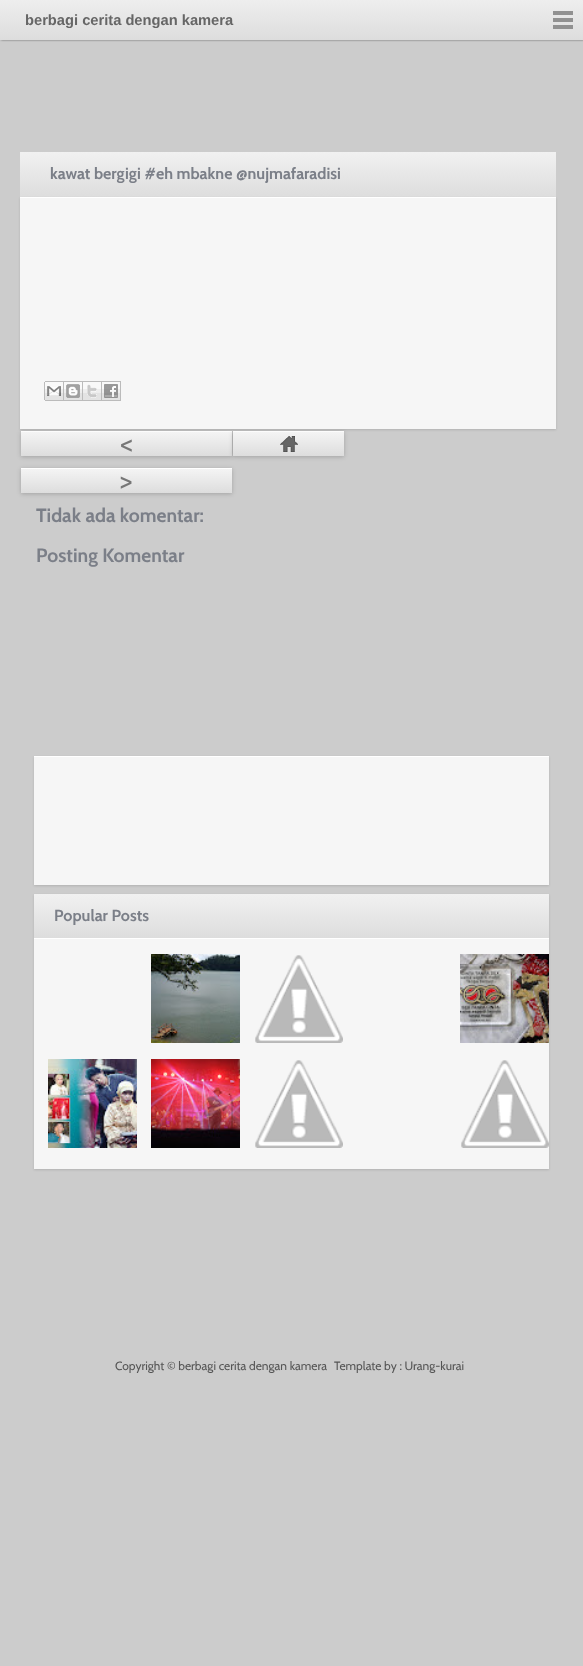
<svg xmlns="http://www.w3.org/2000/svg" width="583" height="1666">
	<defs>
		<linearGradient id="g1" gradientUnits="userSpaceOnUse" x1="292" y1="0" x2="292" y2="40"><stop offset="0" stop-color="#EEEEEE" /><stop offset="1" stop-color="#DDDDDD" /></linearGradient>
		<linearGradient id="g2" gradientUnits="userSpaceOnUse" x1="288" y1="152" x2="288" y2="197"><stop offset="0" stop-color="#F1F1F1" /><stop offset="1" stop-color="#DDDDDD" /></linearGradient>
		<linearGradient id="g3" gradientUnits="userSpaceOnUse" x1="127" y1="432" x2="127" y2="456"><stop offset="0" stop-color="#F4F4F4" /><stop offset="1" stop-color="#DDDDDD" /></linearGradient>
		<linearGradient id="g4" gradientUnits="userSpaceOnUse" x1="289" y1="432" x2="289" y2="456"><stop offset="0" stop-color="#F4F4F4" /><stop offset="1" stop-color="#DDDDDD" /></linearGradient>
		<linearGradient id="g5" gradientUnits="userSpaceOnUse" x1="127" y1="469" x2="127" y2="493"><stop offset="0" stop-color="#F4F4F4" /><stop offset="1" stop-color="#DDDDDD" /></linearGradient>
		<linearGradient id="g6" gradientUnits="userSpaceOnUse" x1="292" y1="894" x2="292" y2="938"><stop offset="0" stop-color="#F1F1F1" /><stop offset="1" stop-color="#DDDDDD" /></linearGradient>
	</defs>
	<rect width="100%" height="100%" fill="#CCCCCC" />
	<rect x="1" y="0" width="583" height="40" fill="#000000" fill-opacity="0.5" filter="blur(1px)" />
	<rect x="0" y="0" width="583" height="40" fill="url(#g1)" />
	<text x="25" y="25" font-family="Liberation Sans" font-size="14.7" font-weight="700" fill="#666666">berbagi cerita dengan kamera</text>
	<image x="553" y="11" width="20" height="18" href="assets/img1.png" />
	<rect x="20" y="152" width="536" height="45" fill="url(#g2)" />
	<text x="50" y="179" font-family="Cabin" font-size="16" font-weight="700" fill="#7B7F88">kawat bergigi #eh mbakne @nujmafaradisi</text>
	<rect x="21" y="432" width="211" height="25" fill="#000000" fill-opacity="0.2" filter="blur(2px)" />
	<rect x="21" y="432" width="211" height="24" fill="url(#g3)" />
	<rect x="21" y="431" width="211" height="1" fill="#FFFFFF" />
	<rect x="233" y="432" width="111" height="25" fill="#000000" fill-opacity="0.2" filter="blur(2px)" />
	<rect x="233" y="432" width="111" height="24" fill="url(#g4)" />
	<rect x="233" y="431" width="111" height="1" fill="#FFFFFF" />
	<rect x="20" y="198" width="536" height="232" fill="#000000" fill-opacity="0.13" filter="blur(1px)" />
	<rect x="20" y="198" width="536" height="231" fill="#F6F6F6" />
	<rect x="20" y="197" width="536" height="1" fill="#FFFFFF" />
	<image x="44" y="381" width="20" height="20" href="assets/img2.png" />
	<image x="64" y="381" width="19" height="20" href="assets/img3.png" />
	<image x="83" y="381" width="19" height="20" href="assets/img4.png" />
	<image x="102" y="381" width="19" height="20" href="assets/img5.png" />
	<text x="120" y="454" font-family="Cabin" font-size="30" fill="#777777">&lt;</text>
	<image x="280" y="436" width="18" height="16" href="assets/img6.png" />
	<rect x="21" y="469" width="211" height="25" fill="#000000" fill-opacity="0.2" filter="blur(2px)" />
	<rect x="21" y="469" width="211" height="24" fill="url(#g5)" />
	<rect x="21" y="468" width="211" height="1" fill="#FFFFFF" />
	<text x="120" y="491" font-family="Cabin" font-size="30" fill="#777777">&gt;</text>
	<g font-family="Cabin" font-size="19.25" font-weight="700" fill="#7B7F88">
		<text x="36" y="522">Tidak ada komentar:</text>
		<text x="36" y="562">Posting Komentar</text>
	</g>
	<rect x="34" y="757" width="515" height="129" fill="#000000" fill-opacity="0.13" filter="blur(1px)" />
	<rect x="34" y="757" width="515" height="128" fill="#F6F6F6" />
	<rect x="34" y="756" width="515" height="1" fill="#FFFFFF" />
	<rect x="34" y="895" width="515" height="275" fill="#000000" fill-opacity="0.13" filter="blur(1px)" />
	<rect x="34" y="894" width="515" height="44" fill="url(#g6)" />
	<text x="54" y="921" font-family="Cabin" font-size="16" font-weight="700" fill="#7B7F88">Popular Posts</text>
	<rect x="34" y="939" width="515" height="230" fill="#F6F6F6" />
	<rect x="34" y="938" width="515" height="1" fill="#FFFFFF" />
	<image x="151" y="954" width="89" height="89" href="assets/img7.png" />
	<image x="255" y="955" width="88" height="88" href="assets/img8.png" />
	<image x="460" y="954" width="89" height="89" href="assets/img9.png" />
	<image x="48" y="1059" width="89" height="89" href="assets/img10.png" />
	<image x="151" y="1059" width="89" height="89" href="assets/img11.png" />
	<image x="255" y="1060" width="88" height="88" href="assets/img12.png" />
	<image x="461" y="1060" width="88" height="88" href="assets/img13.png" />
	<g font-family="Cabin" font-size="12" fill="#555555">
		<text x="115" y="1370">Copyright © berbagi cerita dengan kamera</text>
		<text x="334" y="1370">Template by : Urang-kurai</text>
	</g>
</svg>
